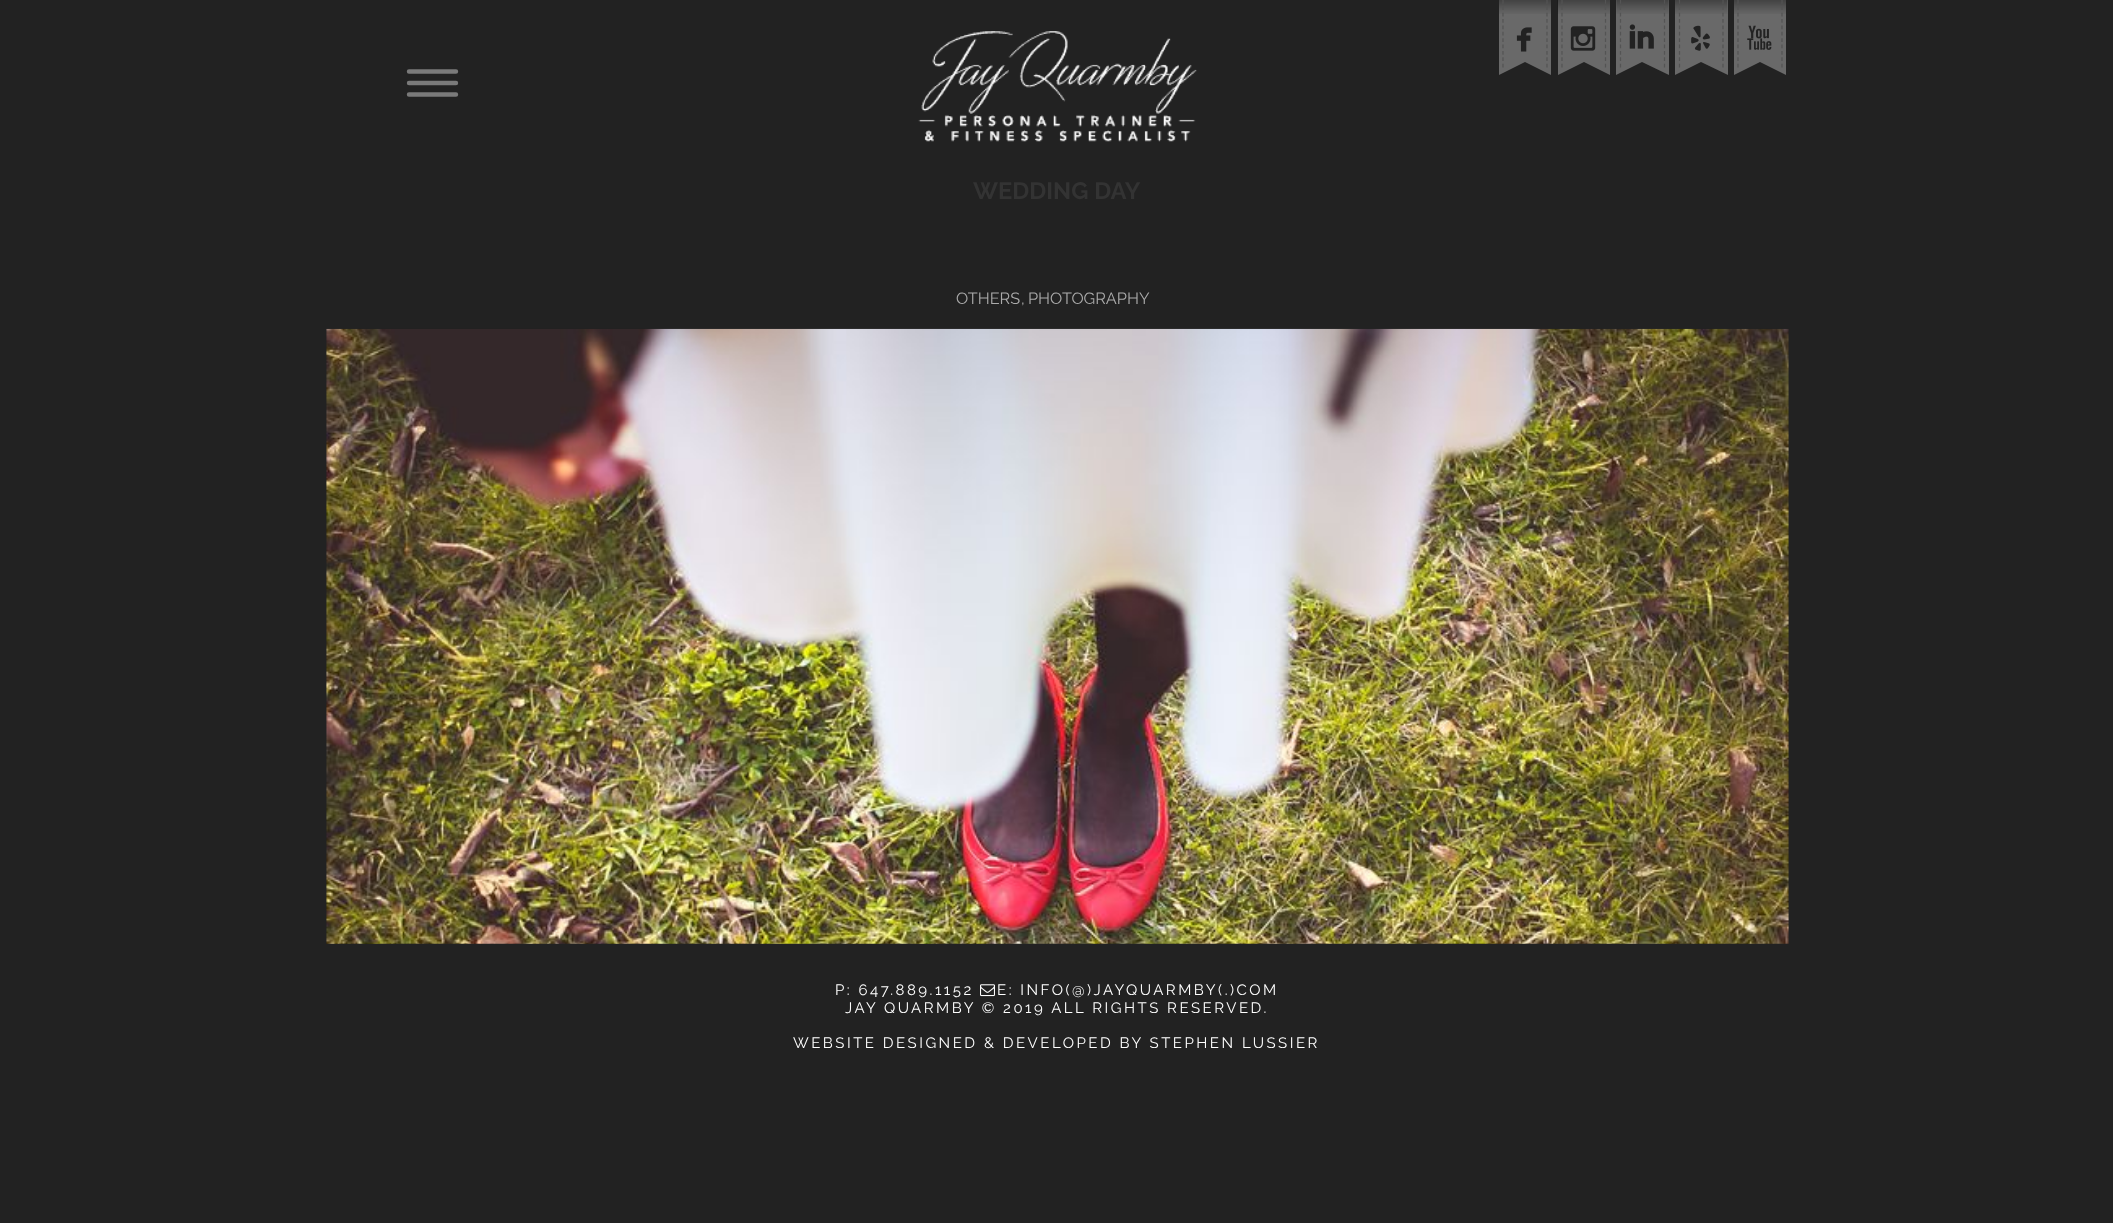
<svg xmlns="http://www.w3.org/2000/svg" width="2113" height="1223">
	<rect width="100%" height="100%" fill="#222222" />
	<path d="M409 71.5H456M409 83H456M409 94.5H456" fill="none" stroke="#7A7A7A" stroke-width="4.4" stroke-linecap="round" />
	<image x="918" y="31" width="279" height="111" href="assets/img1.png" />
	<path d="M1499 0V75L1525 62L1551 75V0Z" fill="#696969" />
	<image x="1499" y="0" width="52" height="14" href="assets/img2.png" />
	<path d="M1547 0V67.5" fill="none" stroke="#545454" stroke-width="1.2" stroke-dasharray="3.75 2.62" />
	<path d="M1503 0V67.5" fill="none" stroke="#545454" stroke-width="1.2" stroke-dasharray="3.75 2.62" />
	<image x="1516" y="27" width="16" height="25" href="assets/img3.png" />
	<path d="M1558 0V75L1584 62L1610 75V0Z" fill="#696969" />
	<image x="1557" y="0" width="53" height="14" href="assets/img4.png" />
	<path d="M1605.5 0V67.5" fill="none" stroke="#545454" stroke-width="1.2" stroke-dasharray="3.75 2.62" />
	<path d="M1562 0V67.5" fill="none" stroke="#545454" stroke-width="1.2" stroke-dasharray="3.75 2.62" />
	<image x="1570" y="26" width="26" height="25" href="assets/img5.png" />
	<path d="M1616 0V75L1642 62L1669 75V0Z" fill="#696969" />
	<image x="1616" y="0" width="53" height="14" href="assets/img6.png" />
	<path d="M1664.5 0V67.5" fill="none" stroke="#545454" stroke-width="1.2" stroke-dasharray="3.75 2.62" />
	<path d="M1620.5 0V67.5" fill="none" stroke="#545454" stroke-width="1.2" stroke-dasharray="3.75 2.62" />
	<image x="1629" y="24" width="25" height="25" href="assets/img7.png" />
	<path d="M1675 0V75L1701 62L1728 75V0Z" fill="#696969" />
	<image x="1675" y="0" width="53" height="14" href="assets/img8.png" />
	<path d="M1723 0V67.5" fill="none" stroke="#545454" stroke-width="1.2" stroke-dasharray="3.75 2.62" />
	<path d="M1679.5 0V67.5" fill="none" stroke="#545454" stroke-width="1.2" stroke-dasharray="3.75 2.62" />
	<image x="1691" y="25" width="19" height="26" href="assets/img9.png" />
	<path d="M1734 0V75L1760 62L1786 75V0Z" fill="#696969" />
	<image x="1734" y="0" width="52" height="14" href="assets/img2.png" />
	<path d="M1782 0V67.5" fill="none" stroke="#545454" stroke-width="1.2" stroke-dasharray="3.75 2.62" />
	<path d="M1738 0V67.5" fill="none" stroke="#545454" stroke-width="1.2" stroke-dasharray="3.75 2.62" />
	<image x="1747" y="25" width="25" height="25" href="assets/img10.png" />
	<text x="973" y="199" font-family="Raleway" font-size="23.75" font-weight="700" fill="#333333">WEDDING DAY</text>
	<g font-family="Raleway" font-size="16.25" fill="#ABABAB">
		<text x="956" y="304">OTHERS</text>
		<text x="1021" y="304">,</text>
		<text x="1028" y="304">PHOTOGRAPHY</text>
	</g>
	<image x="326" y="328" width="1463" height="616" href="assets/img11.png" />
	<text x="835" y="995" font-family="Raleway" font-size="15" letter-spacing="2.5" fill="#FFFFFF">P: 647.889.1152</text>
	<image x="980" y="984" width="15" height="13" href="assets/img12.png" />
	<g font-family="Raleway" font-size="15" letter-spacing="2.5" fill="#FFFFFF">
		<text x="997" y="995">E: INFO(@)JAYQUARMBY(.)COM</text>
		<text x="845" y="1013">JAY QUARMBY © 2019 ALL RIGHTS RESERVED.</text>
		<text x="793" y="1048">WEBSITE DESIGNED &amp; DEVELOPED BY STEPHEN LUSSIER</text>
	</g>
</svg>
